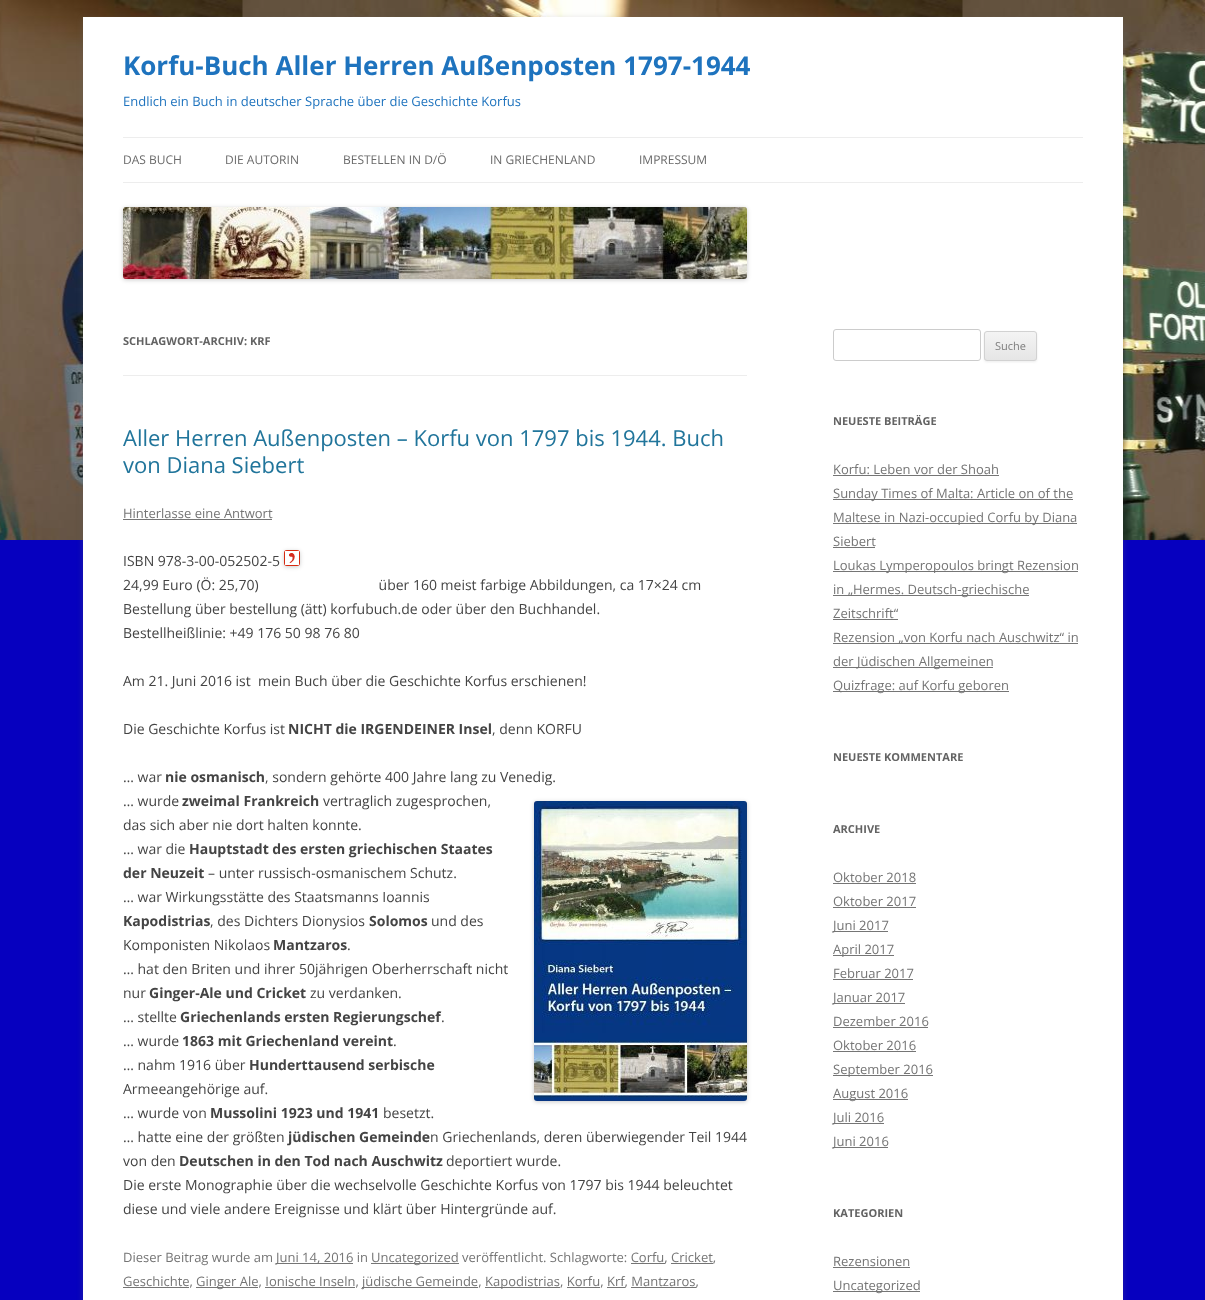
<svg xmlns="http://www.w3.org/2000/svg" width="1205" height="1300">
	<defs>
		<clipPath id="clip1"><rect x="984" y="331" width="53" height="30" rx="3" /></clipPath>
		<linearGradient id="g1" gradientUnits="userSpaceOnUse" x1="1011" y1="332" x2="1011" y2="360"><stop offset="0" stop-color="#F4F4F4" /><stop offset="1" stop-color="#E6E6E6" /></linearGradient>
	</defs>
	<rect width="100%" height="100%" fill="#0600BF" />
	<image x="0" y="0" width="1205" height="540" href="assets/img1.png" />
	<rect x="83" y="19" width="1040" height="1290" fill="#646464" fill-opacity="0.3" filter="blur(3px)" />
	<rect x="83" y="17" width="1040" height="1283" fill="#FFFFFF" />
	<text x="123" y="75" font-family="Open Sans" font-size="26" font-weight="700" fill="#1E73BE">Korfu-Buch Aller Herren Außenposten 1797-1944</text>
	<text x="123" y="106" font-family="Open Sans" font-size="13" fill="#1E73BE">Endlich ein Buch in deutscher Sprache über die Geschichte Korfus</text>
	<rect x="123" y="137" width="960" height="1" fill="#EDEDED" />
	<rect x="123" y="182" width="960" height="1" fill="#EDEDED" />
	<g font-family="Open Sans" font-size="12" fill="#6A6A6A">
		<text x="123" y="164">DAS BUCH</text>
		<text x="225" y="164">DIE AUTORIN</text>
		<text x="343" y="164">BESTELLEN IN D/Ö</text>
		<text x="490" y="164">IN GRIECHENLAND</text>
		<text x="639" y="164">IMPRESSUM</text>
	</g>
	<rect x="123" y="208" width="624" height="72" rx="3" fill="#000000" fill-opacity="0.2" filter="blur(2px)" />
	<image x="123" y="207" width="624" height="72" href="assets/img2.png" />
	<rect x="123" y="375" width="624" height="1" fill="#EDEDED" />
	<text x="123" y="345" font-family="Open Sans" font-size="11" font-weight="700" fill="#636363">SCHLAGWORT-ARCHIV: KRF</text>
	<g font-family="Open Sans" font-size="22" fill="#21759B">
		<text x="123" y="446">Aller Herren Außenposten – Korfu von 1797 bis 1944. Buch</text>
		<text x="123" y="473">von Diana Siebert</text>
	</g>
	<text x="123" y="518" font-family="Open Sans" font-size="13" fill="#757575">Hinterlasse eine Antwort</text>
	<rect x="123" y="519" width="149" height="1" fill="#757575" />
	<rect x="284" y="551" width="16" height="16" rx="3" fill="#000000" fill-opacity="0.2" filter="blur(2px)" />
	<text x="123" y="566" font-family="Open Sans" font-size="14" fill="#444444">ISBN 978-3-00-052502-5</text>
	<image x="284" y="550" width="16" height="16" href="assets/img3.png" />
	<g font-family="Open Sans" font-size="14" fill="#444444">
		<text x="123" y="590" xml:space="preserve">24,99 Euro (Ö: 25,70)                                 über 160 meist farbige Abbildungen, ca 17×24 cm</text>
		<text x="123" y="614">Bestellung über bestellung (ätt) korfubuch.de oder über den Buchhandel.</text>
		<text x="123" y="638">Bestellheißlinie: +49 176 50 98 76 80</text>
		<text x="123" y="686" xml:space="preserve">Am 21. Juni 2016 ist  mein Buch über die Geschichte Korfus erschienen!</text>
		<text x="123" y="734">Die Geschichte Korfus ist</text>
	</g>
	<text x="288" y="734" font-family="Open Sans" font-size="14" font-weight="700" fill="#444444">NICHT die IRGENDEINER Insel</text>
	<g font-family="Open Sans" font-size="14" fill="#444444">
		<text x="492" y="734">, denn KORFU</text>
		<text x="123" y="782">… war</text>
	</g>
	<text x="165" y="782" font-family="Open Sans" font-size="14" font-weight="700" fill="#444444">nie osmanisch</text>
	<g font-family="Open Sans" font-size="14" fill="#444444">
		<text x="265" y="782">, sondern gehörte 400 Jahre lang zu Venedig.</text>
		<text x="123" y="806">… wurde</text>
	</g>
	<text x="182" y="806" font-family="Open Sans" font-size="14" font-weight="700" fill="#444444">zweimal Frankreich</text>
	<text x="323" y="806" font-family="Open Sans" font-size="14" fill="#444444">vertraglich zugesprochen,</text>
	<rect x="534" y="802" width="213" height="300" rx="3" fill="#000000" fill-opacity="0.2" filter="blur(2px)" />
	<image x="534" y="801" width="213" height="300" href="assets/img4.png" />
	<g font-family="Open Sans" font-size="14" fill="#444444">
		<text x="123" y="830">das sich aber nie dort halten konnte.</text>
		<text x="123" y="854">… war die</text>
	</g>
	<g font-family="Open Sans" font-size="14" font-weight="700" fill="#444444">
		<text x="189" y="854">Hauptstadt des ersten griechischen Staates</text>
		<text x="123" y="878">der Neuzeit</text>
	</g>
	<g font-family="Open Sans" font-size="14" fill="#444444">
		<text x="208" y="878">– unter russisch-osmanischem Schutz.</text>
		<text x="123" y="902">… war Wirkungsstätte des Staatsmanns Ioannis</text>
	</g>
	<text x="123" y="926" font-family="Open Sans" font-size="14" font-weight="700" fill="#444444">Kapodistrias</text>
	<text x="210" y="926" font-family="Open Sans" font-size="14" fill="#444444">, des Dichters Dionysios</text>
	<text x="369" y="926" font-family="Open Sans" font-size="14" font-weight="700" fill="#444444">Solomos</text>
	<g font-family="Open Sans" font-size="14" fill="#444444">
		<text x="431" y="926">und des</text>
		<text x="123" y="950">Komponisten Nikolaos</text>
	</g>
	<text x="273" y="950" font-family="Open Sans" font-size="14" font-weight="700" fill="#444444">Mantzaros</text>
	<g font-family="Open Sans" font-size="14" fill="#444444">
		<text x="347" y="950">.</text>
		<text x="123" y="974">… hat den Briten und ihrer 50jährigen Oberherrschaft nicht</text>
		<text x="123" y="998">nur</text>
	</g>
	<text x="149" y="998" font-family="Open Sans" font-size="14" font-weight="700" fill="#444444">Ginger-Ale und Cricket</text>
	<g font-family="Open Sans" font-size="14" fill="#444444">
		<text x="310" y="998">zu verdanken.</text>
		<text x="123" y="1022">… stellte</text>
	</g>
	<text x="180" y="1022" font-family="Open Sans" font-size="14" font-weight="700" fill="#444444">Griechenlands ersten Regierungschef</text>
	<g font-family="Open Sans" font-size="14" fill="#444444">
		<text x="441" y="1022">.</text>
		<text x="123" y="1046">… wurde</text>
	</g>
	<text x="182" y="1046" font-family="Open Sans" font-size="14" font-weight="700" fill="#444444">1863 mit Griechenland vereint</text>
	<g font-family="Open Sans" font-size="14" fill="#444444">
		<text x="393" y="1046">.</text>
		<text x="123" y="1070">… nahm 1916 über</text>
	</g>
	<text x="249" y="1070" font-family="Open Sans" font-size="14" font-weight="700" fill="#444444">Hunderttausend serbische</text>
	<g font-family="Open Sans" font-size="14" fill="#444444">
		<text x="123" y="1094">Armeeangehörige auf.</text>
		<text x="123" y="1118">… wurde von</text>
	</g>
	<text x="210" y="1118" font-family="Open Sans" font-size="14" font-weight="700" fill="#444444">Mussolini 1923 und 1941</text>
	<g font-family="Open Sans" font-size="14" fill="#444444">
		<text x="383" y="1118">besetzt.</text>
		<text x="123" y="1142">… hatte eine der größten</text>
	</g>
	<text x="288" y="1142" font-family="Open Sans" font-size="14" font-weight="700" fill="#444444">jüdischen Gemeinde</text>
	<g font-family="Open Sans" font-size="14" fill="#444444">
		<text x="430" y="1142">n Griechenlands, deren überwiegender Teil 1944</text>
		<text x="123" y="1166">von den</text>
	</g>
	<text x="179" y="1166" font-family="Open Sans" font-size="14" font-weight="700" fill="#444444">Deutschen in den Tod nach Auschwitz</text>
	<g font-family="Open Sans" font-size="14" fill="#444444">
		<text x="446" y="1166">deportiert wurde.</text>
		<text x="123" y="1190">Die erste Monographie über die wechselvolle Geschichte Korfus von 1797 bis 1944 beleuchtet</text>
		<text x="123" y="1214">diese und viele andere Ereignisse und klärt über Hintergründe auf.</text>
	</g>
	<text x="123" y="1262" font-family="Open Sans" font-size="13" fill="#757575">Dieser Beitrag wurde am</text>
	<rect x="276" y="1263" width="77" height="1" fill="#757575" />
	<text x="276" y="1262" font-family="Open Sans" font-size="13" fill="#757575">Juni 14, 2016 in</text>
	<rect x="371" y="1263" width="88" height="1" fill="#757575" />
	<text x="371" y="1262" font-family="Open Sans" font-size="13" fill="#757575">Uncategorized veröffentlicht. Schlagworte: Corfu, Cricket,</text>
	<rect x="631" y="1263" width="34" height="1" fill="#757575" />
	<rect x="671" y="1263" width="42" height="1" fill="#757575" />
	<rect x="123" y="1287" width="66" height="1" fill="#757575" />
	<text x="123" y="1286" font-family="Open Sans" font-size="13" fill="#757575">Geschichte,</text>
	<rect x="196" y="1287" width="62" height="1" fill="#757575" />
	<text x="196" y="1286" font-family="Open Sans" font-size="13" fill="#757575">Ginger Ale, Ionische Inseln,</text>
	<rect x="362" y="1287" width="116" height="1" fill="#757575" />
	<text x="362" y="1286" font-family="Open Sans" font-size="13" fill="#757575">jüdische Gemeinde,</text>
	<rect x="485" y="1287" width="75" height="1" fill="#757575" />
	<text x="485" y="1286" font-family="Open Sans" font-size="13" fill="#757575">Kapodistrias, Korfu, Krf, Mantzaros,</text>
	<rect x="265" y="1287" width="90" height="1" fill="#757575" />
	<rect x="567" y="1287" width="33" height="1" fill="#757575" />
	<rect x="607" y="1287" width="18" height="1" fill="#757575" />
	<rect x="631" y="1287" width="65" height="1" fill="#757575" />
	<rect x="833.5" y="329.5" width="147" height="31" rx="2.5" fill="none" stroke="#CCCCCC" />
	<rect x="984" y="332" width="53" height="30" rx="3" fill="#404040" fill-opacity="0.1" filter="blur(1px)" />
	<g clip-path="url(#clip1)">
		<rect x="984" y="332" width="53" height="28" fill="url(#g1)" />
	</g>
	<rect x="984.5" y="331.5" width="52" height="29" rx="2.5" fill="none" stroke="#D2D2D2" />
	<text x="995" y="350" font-family="Open Sans" font-size="11" fill="#7C7C7C">Suche</text>
	<text x="833" y="425" font-family="Open Sans" font-size="11" font-weight="700" fill="#636363">NEUESTE BEITRÄGE</text>
	<text x="833" y="474" font-family="Open Sans" font-size="13" fill="#757575">Korfu: Leben vor der Shoah</text>
	<rect x="833" y="475" width="166" height="1" fill="#757575" />
	<rect x="833" y="499" width="240" height="1" fill="#757575" />
	<text x="833" y="498" font-family="Open Sans" font-size="13" fill="#757575">Sunday Times of Malta: Article on of the</text>
	<rect x="833" y="523" width="244" height="1" fill="#757575" />
	<g font-family="Open Sans" font-size="13" fill="#757575">
		<text x="833" y="522">Maltese in Nazi-occupied Corfu by Diana</text>
		<text x="833" y="546">Siebert</text>
	</g>
	<rect x="833" y="547" width="42" height="1" fill="#757575" />
	<rect x="833" y="571" width="245" height="1" fill="#757575" />
	<text x="833" y="570" font-family="Open Sans" font-size="13" fill="#757575">Loukas Lymperopoulos bringt Rezension</text>
	<rect x="833" y="595" width="196" height="1" fill="#757575" />
	<g font-family="Open Sans" font-size="13" fill="#757575">
		<text x="833" y="594">in „Hermes. Deutsch-griechische</text>
		<text x="833" y="618">Zeitschrift“</text>
	</g>
	<rect x="833" y="619" width="65" height="1" fill="#757575" />
	<rect x="833" y="643" width="245" height="1" fill="#757575" />
	<text x="833" y="642" font-family="Open Sans" font-size="13" fill="#757575">Rezension „von Korfu nach Auschwitz“ in</text>
	<rect x="833" y="667" width="160" height="1" fill="#757575" />
	<text x="833" y="666" font-family="Open Sans" font-size="13" fill="#757575">der Jüdischen Allgemeinen</text>
	<rect x="833" y="691" width="176" height="1" fill="#757575" />
	<text x="833" y="690" font-family="Open Sans" font-size="13" fill="#757575">Quizfrage: auf Korfu geboren</text>
	<g font-family="Open Sans" font-size="11" font-weight="700" fill="#636363">
		<text x="833" y="761">NEUESTE KOMMENTARE</text>
		<text x="833" y="833">ARCHIVE</text>
	</g>
	<text x="833" y="882" font-family="Open Sans" font-size="13" fill="#757575">Oktober 2018</text>
	<rect x="833" y="883" width="83" height="1" fill="#757575" />
	<text x="833" y="906" font-family="Open Sans" font-size="13" fill="#757575">Oktober 2017</text>
	<rect x="833" y="907" width="83" height="1" fill="#757575" />
	<rect x="833" y="931" width="55" height="1" fill="#757575" />
	<text x="833" y="930" font-family="Open Sans" font-size="13" fill="#757575">Juni 2017</text>
	<rect x="833" y="955" width="61" height="1" fill="#757575" />
	<g font-family="Open Sans" font-size="13" fill="#757575">
		<text x="833" y="954">April 2017</text>
		<text x="833" y="978">Februar 2017</text>
	</g>
	<rect x="833" y="979" width="80" height="1" fill="#757575" />
	<rect x="833" y="1003" width="72" height="1" fill="#757575" />
	<g font-family="Open Sans" font-size="13" fill="#757575">
		<text x="833" y="1002">Januar 2017</text>
		<text x="833" y="1026">Dezember 2016</text>
	</g>
	<rect x="833" y="1027" width="95" height="1" fill="#757575" />
	<text x="833" y="1050" font-family="Open Sans" font-size="13" fill="#757575">Oktober 2016</text>
	<rect x="833" y="1051" width="83" height="1" fill="#757575" />
	<rect x="833" y="1075" width="100" height="1" fill="#757575" />
	<text x="833" y="1074" font-family="Open Sans" font-size="13" fill="#757575">September 2016</text>
	<rect x="833" y="1099" width="75" height="1" fill="#757575" />
	<text x="833" y="1098" font-family="Open Sans" font-size="13" fill="#757575">August 2016</text>
	<rect x="833" y="1123" width="51" height="1" fill="#757575" />
	<text x="833" y="1122" font-family="Open Sans" font-size="13" fill="#757575">Juli 2016</text>
	<rect x="833" y="1147" width="55" height="1" fill="#757575" />
	<text x="833" y="1146" font-family="Open Sans" font-size="13" fill="#757575">Juni 2016</text>
	<text x="833" y="1217" font-family="Open Sans" font-size="11" font-weight="700" fill="#636363">KATEGORIEN</text>
	<text x="833" y="1266" font-family="Open Sans" font-size="13" fill="#757575">Rezensionen</text>
	<rect x="833" y="1267" width="77" height="1" fill="#757575" />
	<rect x="833" y="1291" width="87" height="1" fill="#757575" />
	<text x="833" y="1290" font-family="Open Sans" font-size="13" fill="#757575">Uncategorized</text>
</svg>
